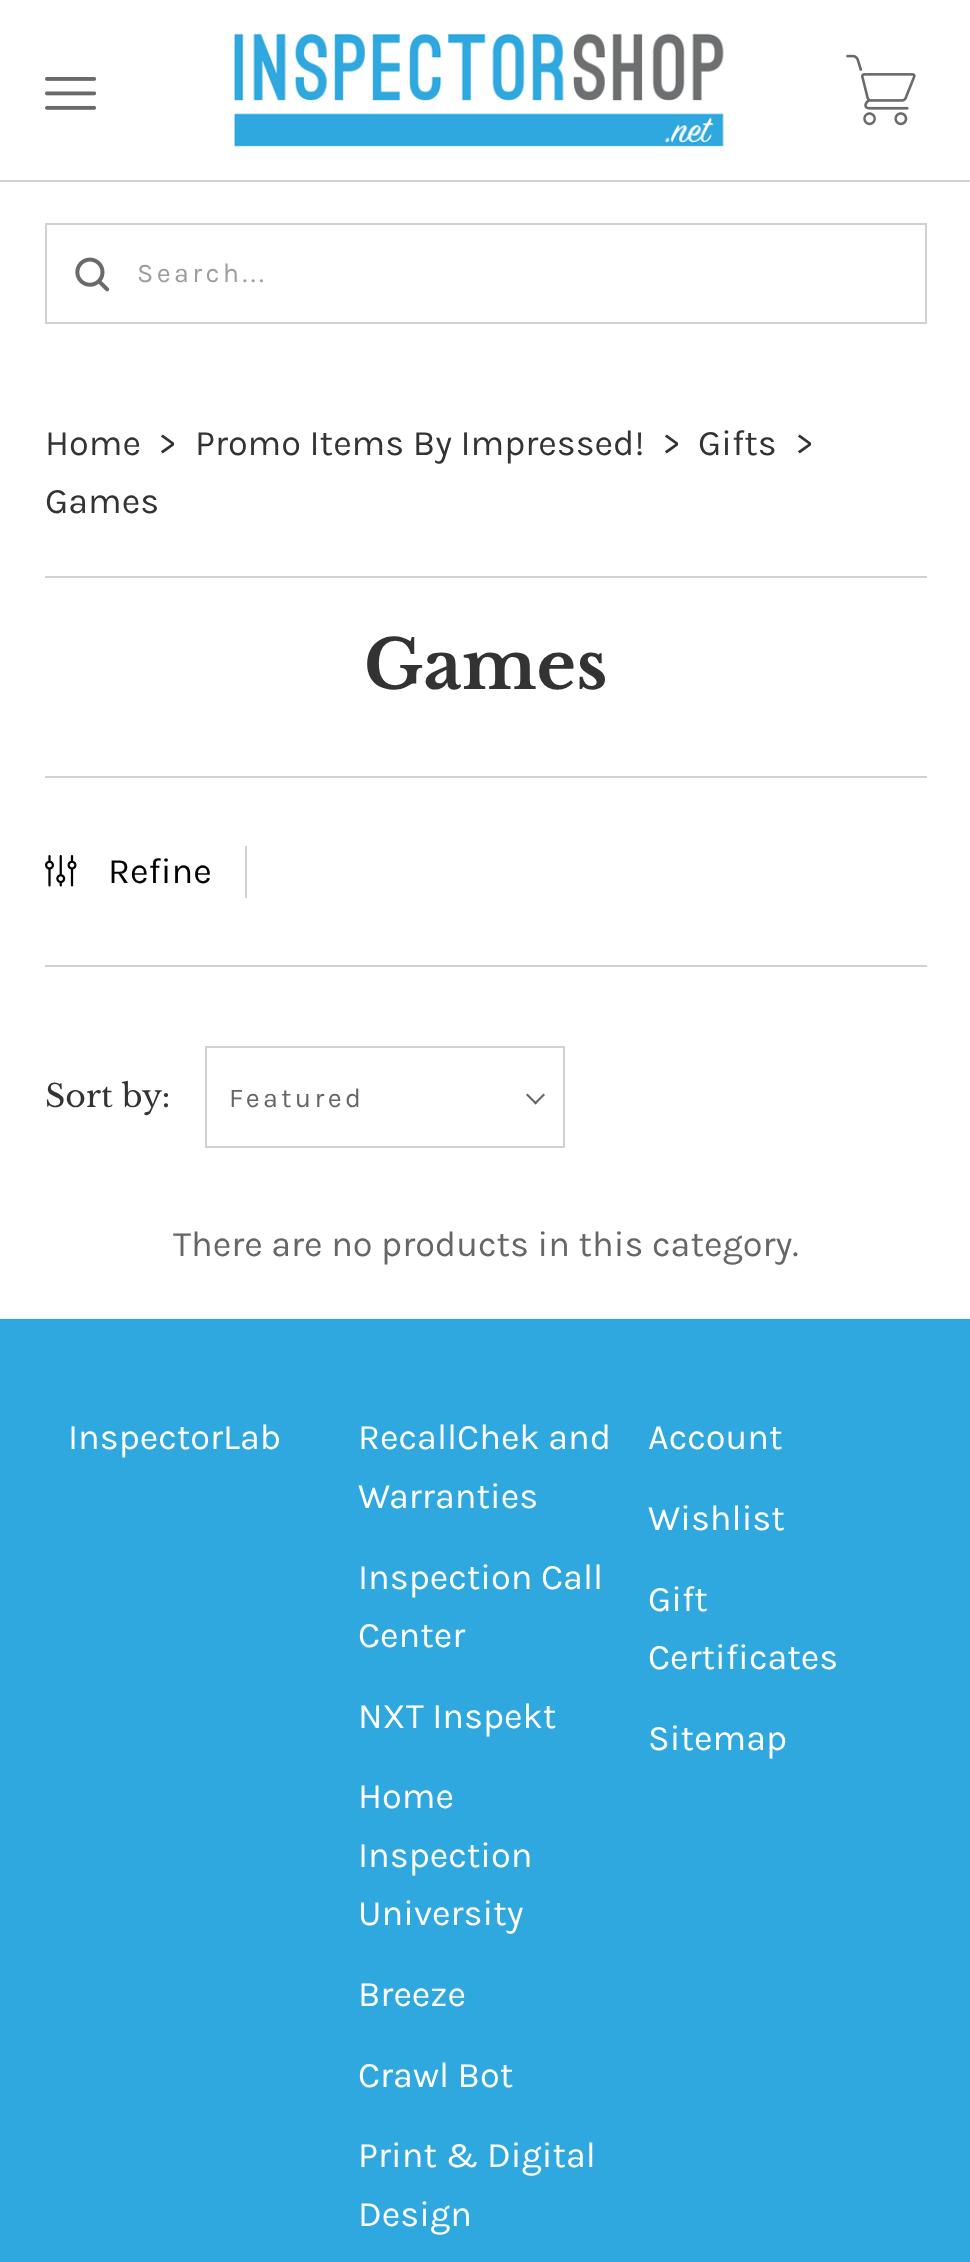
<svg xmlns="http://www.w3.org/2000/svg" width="970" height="2262">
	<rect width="100%" height="100%" fill="#FFFFFF" />
	<rect x="0" y="180" width="970" height="2" fill="#D1D1D1" />
	<image x="45" y="77" width="52" height="33" href="assets/img1.png" />
	<image x="233" y="33" width="491" height="114" href="assets/img2.png" />
	<image x="846" y="54" width="70" height="72" href="assets/img3.png" />
	<rect x="46" y="224" width="880" height="99" fill="none" stroke="#D1D1D1" stroke-width="2" />
	<image x="75" y="257" width="35" height="35" href="assets/img4.png" />
	<text x="137" y="282" font-family="Karla" font-size="27" letter-spacing="3.4" fill="#9D9D9D">Search...</text>
	<rect x="45" y="576" width="882" height="2" fill="#D1D1D1" />
	<g font-family="Karla" font-size="36" fill="#333333">
		<text x="45" y="455">Home</text>
		<text x="158" y="455">&gt;</text>
		<text x="195" y="455">Promo Items By Impressed!</text>
		<text x="662" y="455">&gt;</text>
		<text x="698" y="455">Gifts</text>
		<text x="795" y="455">&gt;</text>
		<text x="45" y="513">Games</text>
	</g>
	<text x="364" y="689" font-family="Libre Baskerville" font-size="67.5" font-weight="700" fill="#333333">Games</text>
	<rect x="45" y="776" width="882" height="2" fill="#D1D1D1" />
	<rect x="245" y="846" width="2" height="52" fill="#D1D1D1" />
	<image x="45" y="855" width="32" height="32" href="assets/img5.png" />
	<text x="108" y="883" font-family="Karla" font-size="36" fill="#000000">Refine</text>
	<rect x="45" y="965" width="882" height="2" fill="#D1D1D1" />
	<text x="45" y="1107" font-family="Libre Baskerville" font-size="31.5" fill="#333333">Sort by:</text>
	<rect x="206" y="1047" width="358" height="100" fill="none" stroke="#D1D1D1" stroke-width="2" />
	<text x="229" y="1107" font-family="Karla" font-size="27" letter-spacing="3.4" fill="#666666">Featured</text>
	<path d="M543.5 1093.5L545 1095L535.5 1104.5L534 1103Z" fill="#666666" />
	<path d="M527.5 1093.5L537 1103L535.5 1104.5L526 1095Z" fill="#666666" />
	<text x="173" y="1256" font-family="Karla" font-size="36" fill="#666666">There are no products in this category.</text>
	<rect x="0" y="1319" width="970" height="943" fill="#2EA8DF" />
	<g font-family="Karla" font-size="36" fill="#FFFFFF">
		<text x="68" y="1449">InspectorLab</text>
		<text x="358" y="1449">RecallChek and</text>
		<text x="358" y="1508">Warranties</text>
		<text x="358" y="1589">Inspection Call</text>
		<text x="358" y="1647">Center</text>
		<text x="358" y="1728">NXT Inspekt</text>
		<text x="358" y="1808">Home</text>
		<text x="358" y="1867">Inspection</text>
		<text x="358" y="1925">University</text>
		<text x="358" y="2006">Breeze</text>
		<text x="358" y="2087">Crawl Bot</text>
		<text x="358" y="2167">Print &amp; Digital</text>
		<text x="358" y="2226">Design</text>
		<text x="648" y="1449">Account</text>
		<text x="648" y="1530">Wishlist</text>
		<text x="648" y="1611">Gift</text>
		<text x="648" y="1669">Certificates</text>
		<text x="648" y="1750">Sitemap</text>
	</g>
</svg>
